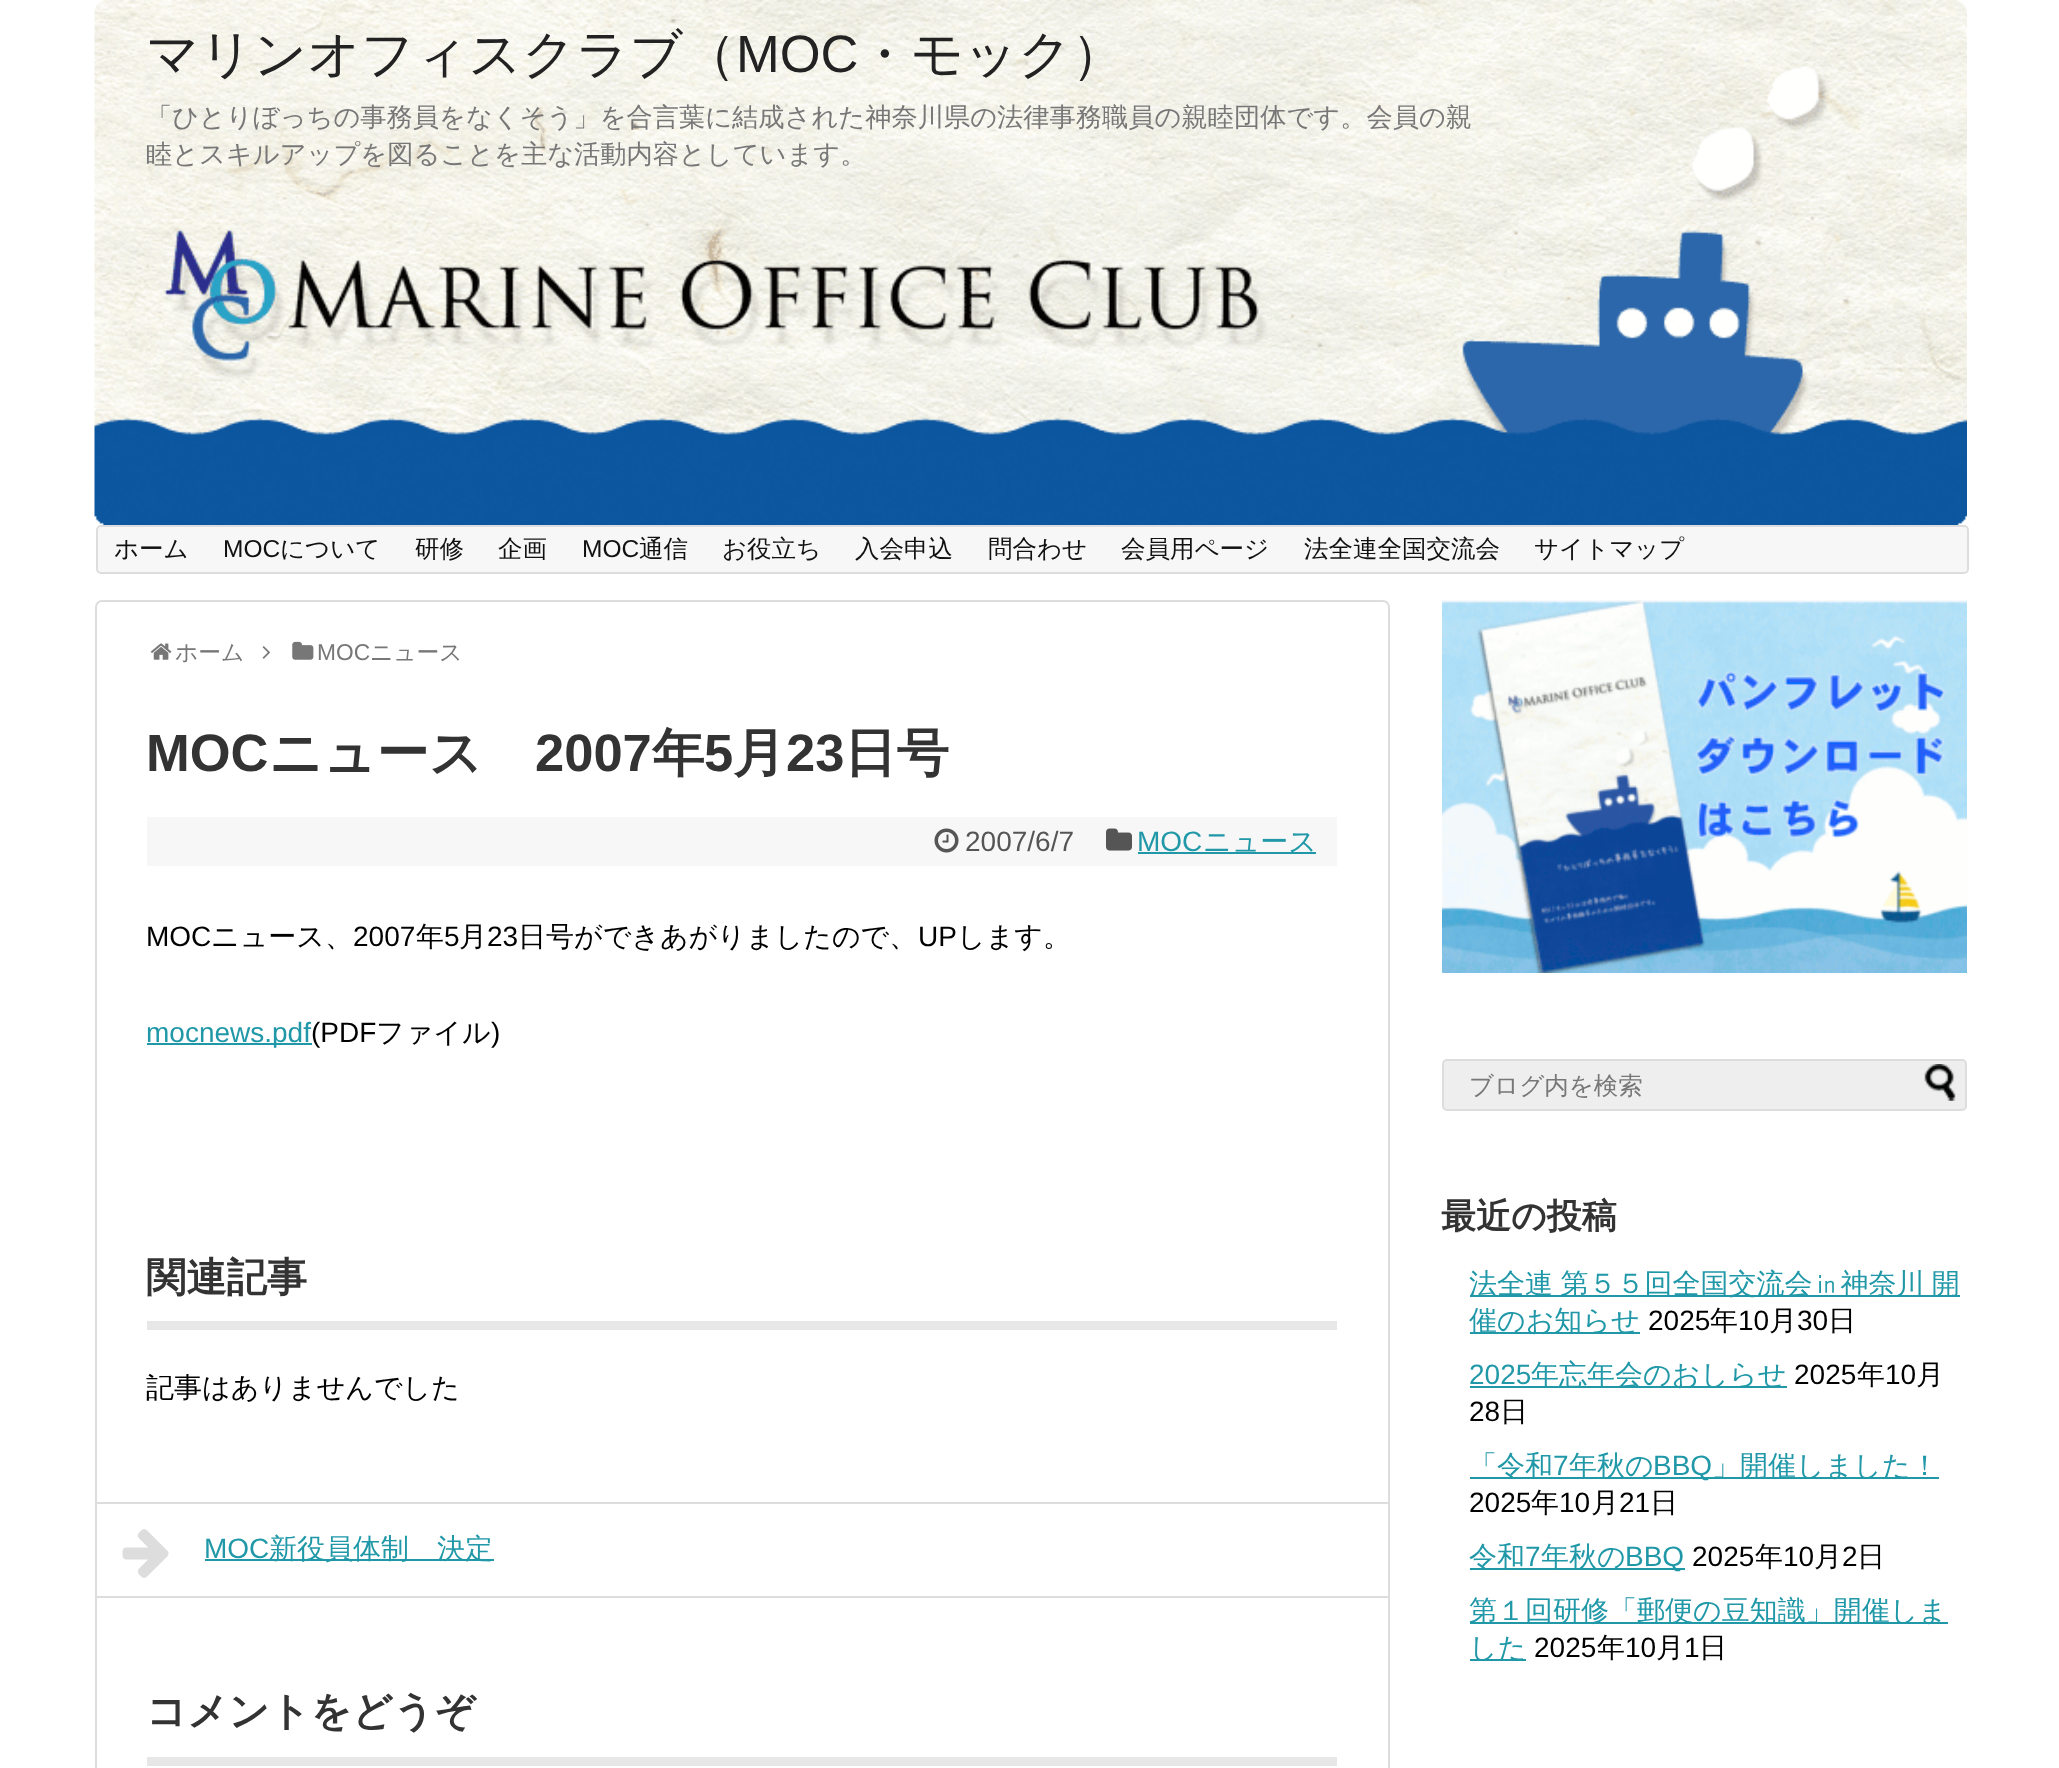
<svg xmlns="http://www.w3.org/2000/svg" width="2059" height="1768">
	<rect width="100%" height="100%" fill="#FFFFFF" />
	<image x="94" y="0" width="1873" height="525" href="assets/img1.png" />
	<text x="146" y="72" font-family="WenQuanYi Zen Hei" font-size="52.5" font-weight="500" fill="#222222">マリンオフィスクラブ（</text>
	<text x="736" y="72" font-family="Liberation Sans" font-size="52.5" fill="#222222">MOC</text>
	<text x="858" y="72" font-family="WenQuanYi Zen Hei" font-size="52.5" font-weight="500" fill="#222222">・モック）</text>
	<g font-family="WenQuanYi Zen Hei" font-size="26.25" font-weight="500" fill="#777777">
		<text x="146" y="126">「ひとりぼっちの事務員をなくそう」を合言葉に結成された神奈川県の法律事務職員の親睦団体です。会員の親</text>
		<text x="146" y="163">睦とスキルアップを図ることを主な活動内容としています。</text>
	</g>
	<rect x="97" y="526" width="1871" height="47" rx="4" fill="#F7F7F7" stroke="#DDDDDD" stroke-width="2" />
	<text x="114" y="557" font-family="WenQuanYi Zen Hei" font-size="24.5" font-weight="500" fill="#111111">ホーム</text>
	<text x="223" y="557" font-family="Liberation Sans" font-size="24.5" fill="#111111">MOC</text>
	<g font-family="WenQuanYi Zen Hei" font-size="24.5" font-weight="500" fill="#111111">
		<text x="280" y="557">について</text>
		<text x="415" y="557">研修</text>
		<text x="498" y="557">企画</text>
	</g>
	<text x="582" y="557" font-family="Liberation Sans" font-size="24.5" fill="#111111">MOC</text>
	<g font-family="WenQuanYi Zen Hei" font-size="24.5" font-weight="500" fill="#111111">
		<text x="639" y="557">通信</text>
		<text x="722" y="557">お役立ち</text>
		<text x="855" y="557">入会申込</text>
		<text x="988" y="557">問合わせ</text>
		<text x="1121" y="557">会員用ページ</text>
		<text x="1304" y="557">法全連全国交流会</text>
		<text x="1534" y="557">サイトマップ</text>
	</g>
	<rect x="96" y="601" width="1293" height="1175" rx="6" fill="none" stroke="#DDDDDD" stroke-width="2" />
	<image x="150" y="643" width="22" height="17" href="assets/img2.png" />
	<text x="175" y="660" font-family="WenQuanYi Zen Hei" font-size="22.75" font-weight="500" fill="#777777">ホーム</text>
	<image x="262" y="646" width="8" height="13" href="assets/img3.png" />
	<image x="292" y="641" width="22" height="19" href="assets/img4.png" />
	<text x="317" y="660" font-family="Liberation Sans" font-size="22.75" fill="#777777">MOC</text>
	<text x="370" y="660" font-family="WenQuanYi Zen Hei" font-size="22.75" font-weight="500" fill="#777777">ニュース</text>
	<text x="146" y="771" font-family="Liberation Sans" font-size="52.5" font-weight="700" fill="#333333">MOC</text>
	<text x="269" y="771" font-family="WenQuanYi Zen Hei" font-size="52.5" font-weight="700" fill="#333333">ニュース</text>
	<text x="535" y="771" font-family="Liberation Sans" font-size="52.5" font-weight="700" fill="#333333">2007</text>
	<text x="652" y="771" font-family="WenQuanYi Zen Hei" font-size="52.5" font-weight="700" fill="#333333">年</text>
	<text x="704" y="771" font-family="Liberation Sans" font-size="52.5" font-weight="700" fill="#333333">5</text>
	<text x="733" y="771" font-family="WenQuanYi Zen Hei" font-size="52.5" font-weight="700" fill="#333333">月</text>
	<text x="786" y="771" font-family="Liberation Sans" font-size="52.5" font-weight="700" fill="#333333">23</text>
	<text x="844" y="771" font-family="WenQuanYi Zen Hei" font-size="52.5" font-weight="700" fill="#333333">日号</text>
	<rect x="147" y="817" width="1190" height="49" fill="#F7F7F7" />
	<image x="934" y="828" width="25" height="25" href="assets/img5.png" />
	<text x="965" y="851" font-family="Liberation Sans" font-size="28" fill="#555555">2007/6/7</text>
	<image x="1106" y="828" width="26" height="23" href="assets/img6.png" />
	<text x="1137" y="851" font-family="Liberation Sans" font-size="28" fill="#2098A8">MOC</text>
	<rect x="1138" y="852" width="178" height="2" fill="#2098A8" />
	<text x="1203" y="851" font-family="WenQuanYi Zen Hei" font-size="28" font-weight="500" fill="#2098A8">ニュース</text>
	<text x="146" y="946" font-family="Liberation Sans" font-size="28" fill="#000000">MOC</text>
	<text x="211" y="946" font-family="WenQuanYi Zen Hei" font-size="28" font-weight="500" fill="#000000">ニュース、</text>
	<text x="353" y="946" font-family="Liberation Sans" font-size="28" fill="#000000">2007</text>
	<text x="416" y="946" font-family="WenQuanYi Zen Hei" font-size="28" font-weight="500" fill="#000000">年</text>
	<text x="444" y="946" font-family="Liberation Sans" font-size="28" fill="#000000">5</text>
	<text x="459" y="946" font-family="WenQuanYi Zen Hei" font-size="28" font-weight="500" fill="#000000">月</text>
	<text x="487" y="946" font-family="Liberation Sans" font-size="28" fill="#000000">23</text>
	<text x="518" y="946" font-family="WenQuanYi Zen Hei" font-size="28" font-weight="500" fill="#000000">日号ができあがりましたので、</text>
	<text x="918" y="946" font-family="Liberation Sans" font-size="28" fill="#000000">UP</text>
	<text x="957" y="946" font-family="WenQuanYi Zen Hei" font-size="28" font-weight="500" fill="#000000">します。</text>
	<rect x="147" y="1043" width="165" height="2" fill="#2098A8" />
	<text x="146" y="1042" font-family="Liberation Sans" font-size="28" fill="#2098A8">mocnews.pdf</text>
	<text x="311" y="1042" font-family="Liberation Sans" font-size="28" fill="#000000">(PDF</text>
	<text x="376" y="1042" font-family="WenQuanYi Zen Hei" font-size="28" font-weight="500" fill="#000000">ファイル</text>
	<text x="491" y="1042" font-family="Liberation Sans" font-size="28" fill="#000000">)</text>
	<rect x="147" y="1321" width="1190" height="9" fill="#E7E7E7" />
	<text x="146" y="1291" font-family="WenQuanYi Zen Hei" font-size="40.25" font-weight="700" fill="#333333">関連記事</text>
	<text x="146" y="1397" font-family="WenQuanYi Zen Hei" font-size="28" font-weight="500" fill="#000000">記事はありませんでした</text>
	<rect x="95" y="1502" width="1295" height="2" fill="#DDDDDD" />
	<rect x="95" y="1596" width="1295" height="2" fill="#DDDDDD" />
	<image x="122" y="1529" width="47" height="49" href="assets/img7.png" />
	<text x="204" y="1558" font-family="Liberation Sans" font-size="28" fill="#2098A8">MOC</text>
	<rect x="205" y="1559" width="289" height="2" fill="#2098A8" />
	<text x="269" y="1558" font-family="WenQuanYi Zen Hei" font-size="28" font-weight="500" fill="#2098A8">新役員体制　決定</text>
	<rect x="147" y="1757" width="1190" height="9" fill="#E7E7E7" />
	<text x="146" y="1725" font-family="WenQuanYi Zen Hei" font-size="40.25" font-weight="700" fill="#333333">コメントをどうぞ</text>
	<image x="1442" y="600" width="525" height="373" href="assets/img8.png" />
	<rect x="1443" y="1060" width="523" height="50" rx="4" fill="#EEEEEE" stroke="#DDDDDD" stroke-width="2" />
	<text x="1469" y="1094" font-family="WenQuanYi Zen Hei" font-size="24.5" font-weight="500" fill="#777777">ブログ内を検索</text>
	<image x="1924" y="1064" width="32" height="37" href="assets/img9.png" />
	<text x="1441" y="1228" font-family="WenQuanYi Zen Hei" font-size="35" font-weight="700" fill="#333333">最近の投稿</text>
	<rect x="1470" y="1295" width="490" height="2" fill="#2098A8" />
	<text x="1469" y="1293" word-spacing="-1" font-family="WenQuanYi Zen Hei" font-size="28" font-weight="500" fill="#2098A8">法全連 第５５回全国交流会㏌神奈川 開</text>
	<rect x="1470" y="1332" width="170" height="2" fill="#2098A8" />
	<text x="1469" y="1330" font-family="WenQuanYi Zen Hei" font-size="28" font-weight="500" fill="#2098A8">催のお知らせ</text>
	<text x="1648" y="1330" font-family="Liberation Sans" font-size="28" fill="#000000">2025</text>
	<text x="1710" y="1330" font-family="WenQuanYi Zen Hei" font-size="28" font-weight="500" fill="#000000">年</text>
	<text x="1738" y="1330" font-family="Liberation Sans" font-size="28" fill="#000000">10</text>
	<text x="1769" y="1330" font-family="WenQuanYi Zen Hei" font-size="28" font-weight="500" fill="#000000">月</text>
	<text x="1797" y="1330" font-family="Liberation Sans" font-size="28" fill="#000000">30</text>
	<text x="1828" y="1330" font-family="WenQuanYi Zen Hei" font-size="28" font-weight="500" fill="#000000">日</text>
	<text x="1469" y="1384" font-family="Liberation Sans" font-size="28" fill="#2098A8">2025</text>
	<rect x="1470" y="1386" width="317" height="2" fill="#2098A8" />
	<text x="1531" y="1384" font-family="WenQuanYi Zen Hei" font-size="28" font-weight="500" fill="#2098A8">年忘年会のおしらせ</text>
	<text x="1794" y="1384" font-family="Liberation Sans" font-size="28" fill="#000000">2025</text>
	<text x="1857" y="1384" font-family="WenQuanYi Zen Hei" font-size="28" font-weight="500" fill="#000000">年</text>
	<text x="1885" y="1384" font-family="Liberation Sans" font-size="28" fill="#000000">10</text>
	<text x="1916" y="1384" font-family="WenQuanYi Zen Hei" font-size="28" font-weight="500" fill="#000000">月</text>
	<text x="1469" y="1421" font-family="Liberation Sans" font-size="28" fill="#000000">28</text>
	<text x="1500" y="1421" font-family="WenQuanYi Zen Hei" font-size="28" font-weight="500" fill="#000000">日</text>
	<rect x="1470" y="1477" width="469" height="2" fill="#2098A8" />
	<text x="1469" y="1475" font-family="WenQuanYi Zen Hei" font-size="28" font-weight="500" fill="#2098A8">「令和</text>
	<text x="1553" y="1475" font-family="Liberation Sans" font-size="28" fill="#2098A8">7</text>
	<text x="1569" y="1475" font-family="WenQuanYi Zen Hei" font-size="28" font-weight="500" fill="#2098A8">年秋の</text>
	<text x="1653" y="1475" font-family="Liberation Sans" font-size="28" fill="#2098A8">BBQ</text>
	<text x="1712" y="1475" font-family="WenQuanYi Zen Hei" font-size="28" font-weight="500" fill="#2098A8">」開催しました！</text>
	<text x="1469" y="1512" font-family="Liberation Sans" font-size="28" fill="#000000">2025</text>
	<text x="1531" y="1512" font-family="WenQuanYi Zen Hei" font-size="28" font-weight="500" fill="#000000">年</text>
	<text x="1559" y="1512" font-family="Liberation Sans" font-size="28" fill="#000000">10</text>
	<text x="1591" y="1512" font-family="WenQuanYi Zen Hei" font-size="28" font-weight="500" fill="#000000">月</text>
	<text x="1619" y="1512" font-family="Liberation Sans" font-size="28" fill="#000000">21</text>
	<text x="1650" y="1512" font-family="WenQuanYi Zen Hei" font-size="28" font-weight="500" fill="#000000">日</text>
	<rect x="1470" y="1568" width="215" height="2" fill="#2098A8" />
	<text x="1469" y="1566" font-family="WenQuanYi Zen Hei" font-size="28" font-weight="500" fill="#2098A8">令和</text>
	<text x="1525" y="1566" font-family="Liberation Sans" font-size="28" fill="#2098A8">7</text>
	<text x="1541" y="1566" font-family="WenQuanYi Zen Hei" font-size="28" font-weight="500" fill="#2098A8">年秋の</text>
	<text x="1625" y="1566" font-family="Liberation Sans" font-size="28" fill="#2098A8">BBQ</text>
	<text x="1692" y="1566" font-family="Liberation Sans" font-size="28" fill="#000000">2025</text>
	<text x="1755" y="1566" font-family="WenQuanYi Zen Hei" font-size="28" font-weight="500" fill="#000000">年</text>
	<text x="1783" y="1566" font-family="Liberation Sans" font-size="28" fill="#000000">10</text>
	<text x="1814" y="1566" font-family="WenQuanYi Zen Hei" font-size="28" font-weight="500" fill="#000000">月</text>
	<text x="1842" y="1566" font-family="Liberation Sans" font-size="28" fill="#000000">2</text>
	<text x="1857" y="1566" font-family="WenQuanYi Zen Hei" font-size="28" font-weight="500" fill="#000000">日</text>
	<rect x="1470" y="1622" width="478" height="2" fill="#2098A8" />
	<text x="1469" y="1620" font-family="WenQuanYi Zen Hei" font-size="28" font-weight="500" fill="#2098A8">第１回研修「郵便の豆知識」開催しま</text>
	<rect x="1470" y="1659" width="56" height="2" fill="#2098A8" />
	<text x="1469" y="1657" font-family="WenQuanYi Zen Hei" font-size="28" font-weight="500" fill="#2098A8">した</text>
	<text x="1534" y="1657" font-family="Liberation Sans" font-size="28" fill="#000000">2025</text>
	<text x="1597" y="1657" font-family="WenQuanYi Zen Hei" font-size="28" font-weight="500" fill="#000000">年</text>
	<text x="1625" y="1657" font-family="Liberation Sans" font-size="28" fill="#000000">10</text>
	<text x="1656" y="1657" font-family="WenQuanYi Zen Hei" font-size="28" font-weight="500" fill="#000000">月</text>
	<text x="1684" y="1657" font-family="Liberation Sans" font-size="28" fill="#000000">1</text>
	<text x="1699" y="1657" font-family="WenQuanYi Zen Hei" font-size="28" font-weight="500" fill="#000000">日</text>
</svg>
